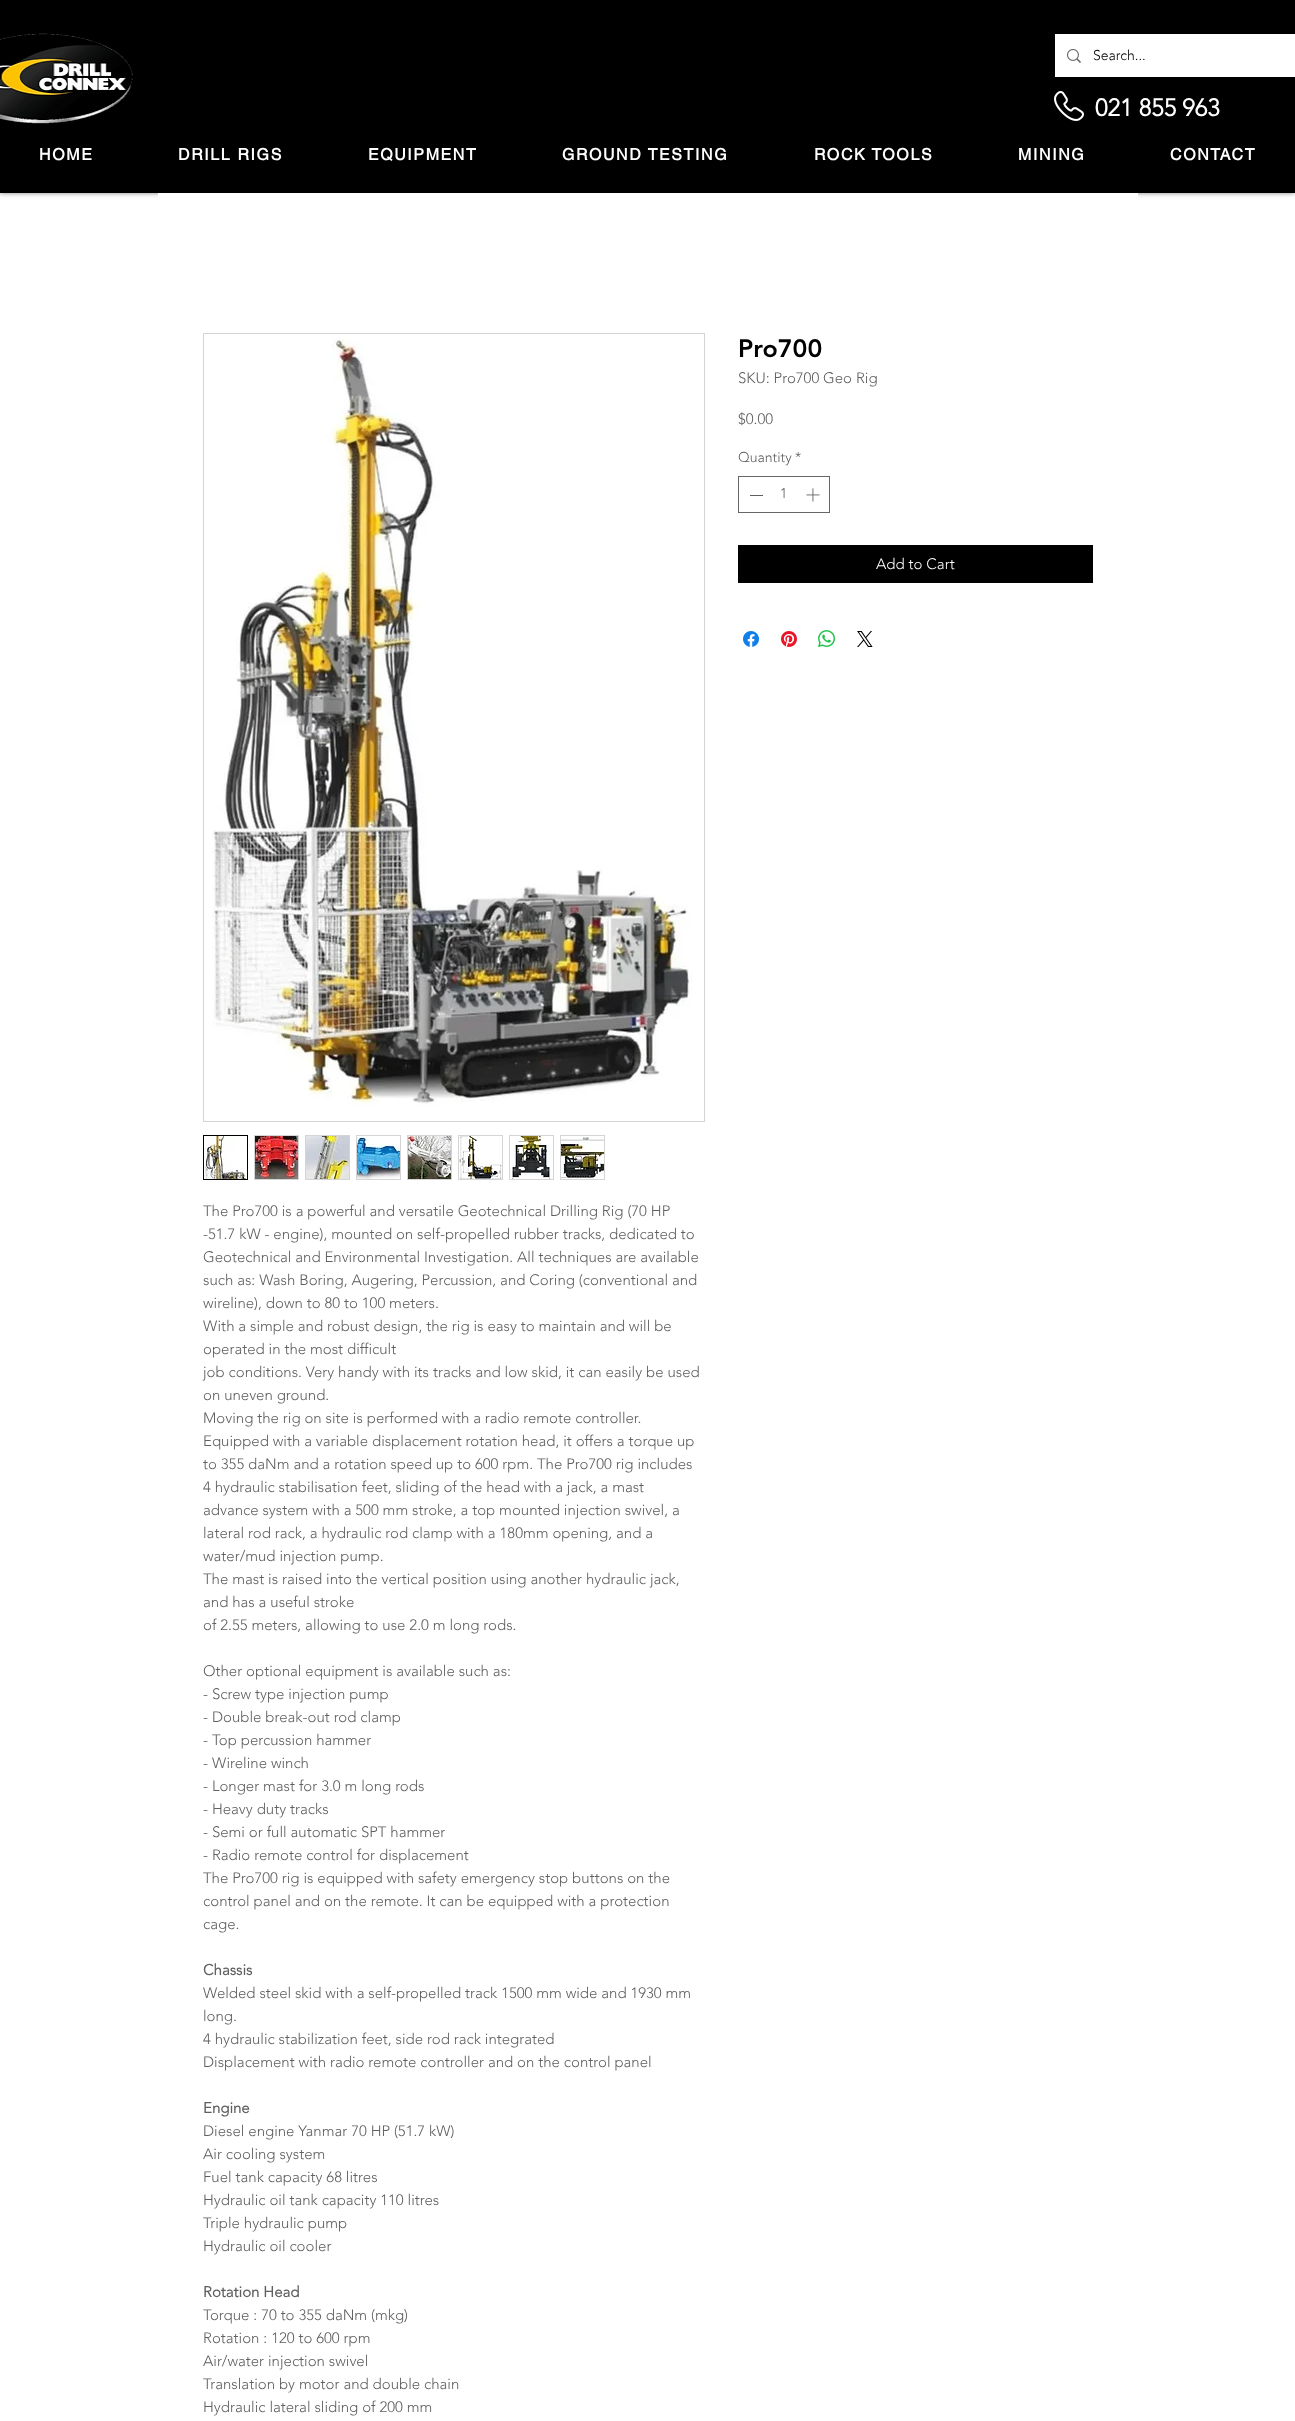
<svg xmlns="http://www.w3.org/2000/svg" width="1295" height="2421">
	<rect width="100%" height="100%" fill="#FFFFFF" />
	<rect x="0" y="0" width="1295" height="193" fill="#000000" fill-opacity="0.5" filter="blur(2.5px)" />
	<rect x="0" y="0" width="1295" height="193" fill="#000000" />
	<image x="0" y="33" width="133" height="91" href="assets/img1.png" />
	<rect x="1055" y="34" width="240" height="43" fill="#FFFFFF" />
	<image x="1067" y="49" width="14" height="14" href="assets/img2.png" />
	<text x="1093" y="60" font-family="'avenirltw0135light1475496'" font-size="14" font-weight="300" fill="#000000">Search...</text>
	<image x="1054" y="91" width="30" height="30" href="assets/img3.png" />
	<text x="1095" y="116" font-family="'avenirltw0135light1475496'" font-size="24" font-weight="700" fill="#FFFFFF">021 855 963</text>
	<g font-family="helvetica" font-size="16" font-weight="700" letter-spacing="1.6" fill="#FFFFFF">
		<text x="39" y="160">HOME</text>
		<text x="178" y="160">DRILL RIGS</text>
		<text x="368" y="160">EQUIPMENT</text>
		<text x="562" y="160">GROUND TESTING</text>
		<text x="814" y="160">ROCK TOOLS</text>
		<text x="1018" y="160">MINING</text>
		<text x="1170" y="160">CONTACT</text>
	</g>
	<rect x="158" y="193" width="980" height="5" fill="#FFFFFF" />
	<text x="738" y="357" font-family="'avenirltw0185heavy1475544'" font-size="25" font-weight="900" fill="#000000">Pro700</text>
	<g font-family="'avenirltw0135light1475496'" font-size="15" font-weight="300" fill="#606060">
		<text x="738" y="383">SKU: Pro700 Geo Rig</text>
		<text x="738" y="424">$0.00</text>
	</g>
	<g font-family="'avenirltw0135light1475496'" font-size="14" font-weight="300" fill="#606060">
		<text x="738" y="462">Quantity</text>
		<text x="795" y="462">*</text>
	</g>
	<rect x="738.5" y="476.5" width="91" height="36" fill="none" stroke="#666666" />
	<rect x="750" y="495" width="13" height="1" fill="#606060" />
	<text x="780" y="498" font-family="'avenirltw0135light1475496'" font-size="14" font-weight="300" fill="#606060">1</text>
	<image x="806" y="488" width="14" height="14" href="assets/img4.png" />
	<rect x="738" y="545" width="355" height="38" fill="#000000" />
	<text x="876" y="569" font-family="'avenirltw0135light1475496'" font-size="15" font-weight="300" fill="#FFFFFF">Add to Cart</text>
	<image x="743" y="631" width="16" height="16" href="assets/img5.png" />
	<image x="781" y="631" width="16" height="16" href="assets/img6.png" />
	<image x="818" y="630" width="17" height="17" href="assets/img7.png" />
	<image x="857" y="631" width="16" height="16" href="assets/img8.png" />
	<rect x="203.5" y="333.5" width="501" height="788" fill="none" stroke="#D4D4D4" />
	<image x="212" y="338" width="480" height="768" href="assets/img9.png" />
	<rect x="203.5" y="1135.5" width="44" height="44" fill="none" stroke="#000000" />
	<image x="204" y="1136" width="43" height="43" href="assets/img10.png" />
	<rect x="254" y="1135" width="45" height="45" fill="#D4D4D4" />
	<image x="255" y="1136" width="43" height="43" href="assets/img11.png" />
	<rect x="305" y="1135" width="45" height="45" fill="#D4D4D4" />
	<image x="306" y="1136" width="43" height="43" href="assets/img12.png" />
	<rect x="356" y="1135" width="45" height="45" fill="#D4D4D4" />
	<image x="357" y="1136" width="43" height="43" href="assets/img13.png" />
	<rect x="407" y="1135" width="45" height="45" fill="#D4D4D4" />
	<image x="408" y="1136" width="43" height="43" href="assets/img14.png" />
	<rect x="458" y="1135" width="45" height="45" fill="#D4D4D4" />
	<image x="459" y="1136" width="43" height="43" href="assets/img15.png" />
	<rect x="509" y="1135" width="45" height="45" fill="#D4D4D4" />
	<image x="510" y="1136" width="43" height="43" href="assets/img16.png" />
	<rect x="560" y="1135" width="45" height="45" fill="#D4D4D4" />
	<image x="561" y="1136" width="43" height="43" href="assets/img17.png" />
	<g font-family="'avenirltw0135light1475496'" font-size="15" font-weight="300" fill="#606060">
		<text x="203" y="1216">The Pro700 is a powerful and versatile Geotechnical Drilling Rig (70 HP</text>
		<text x="203" y="1239">-51.7 kW - engine), mounted on self-propelled rubber tracks, dedicated to</text>
		<text x="203" y="1262">Geotechnical and Environmental Investigation. All techniques are available</text>
		<text x="203" y="1285">such as: Wash Boring, Augering, Percussion, and Coring (conventional and</text>
		<text x="203" y="1308">wireline), down to 80 to 100 meters.</text>
		<text x="203" y="1331">With a simple and robust design, the rig is easy to maintain and will be</text>
		<text x="203" y="1354">operated in the most difficult</text>
		<text x="203" y="1377">job conditions. Very handy with its tracks and low skid, it can easily be used</text>
		<text x="203" y="1400">on uneven ground.</text>
		<text x="203" y="1423">Moving the rig on site is performed with a radio remote controller.</text>
		<text x="203" y="1446">Equipped with a variable displacement rotation head, it offers a torque up</text>
		<text x="203" y="1469">to 355 daNm and a rotation speed up to 600 rpm. The Pro700 rig includes</text>
		<text x="203" y="1492">4 hydraulic stabilisation feet, sliding of the head with a jack, a mast</text>
		<text x="203" y="1515">advance system with a 500 mm stroke, a top mounted injection swivel, a</text>
		<text x="203" y="1538">lateral rod rack, a hydraulic rod clamp with a 180mm opening, and a</text>
		<text x="203" y="1561">water/mud injection pump.</text>
		<text x="203" y="1584">The mast is raised into the vertical position using another hydraulic jack,</text>
		<text x="203" y="1607">and has a useful stroke</text>
		<text x="203" y="1630">of 2.55 meters, allowing to use 2.0 m long rods.</text>
		<text x="203" y="1676">Other optional equipment is available such as:</text>
		<text x="203" y="1699">- Screw type injection pump</text>
		<text x="203" y="1722">- Double break-out rod clamp</text>
		<text x="203" y="1745">- Top percussion hammer</text>
		<text x="203" y="1768">- Wireline winch</text>
		<text x="203" y="1791">- Longer mast for 3.0 m long rods</text>
		<text x="203" y="1814">- Heavy duty tracks</text>
		<text x="203" y="1837">- Semi or full automatic SPT hammer</text>
		<text x="203" y="1860">- Radio remote control for displacement</text>
		<text x="203" y="1883">The Pro700 rig is equipped with safety emergency stop buttons on the</text>
		<text x="203" y="1906">control panel and on the remote. It can be equipped with a protection</text>
		<text x="203" y="1929">cage.</text>
	</g>
	<text x="203" y="1975" font-family="'avenirltw0135light1475496'" font-size="15" font-weight="700" fill="#606060">Chassis</text>
	<g font-family="'avenirltw0135light1475496'" font-size="15" font-weight="300" fill="#606060">
		<text x="203" y="1998">Welded steel skid with a self-propelled track 1500 mm wide and 1930 mm</text>
		<text x="203" y="2021">long.</text>
		<text x="203" y="2044">4 hydraulic stabilization feet, side rod rack integrated</text>
		<text x="203" y="2067">Displacement with radio remote controller and on the control panel</text>
	</g>
	<text x="203" y="2113" font-family="'avenirltw0135light1475496'" font-size="15" font-weight="700" fill="#606060">Engine</text>
	<g font-family="'avenirltw0135light1475496'" font-size="15" font-weight="300" fill="#606060">
		<text x="203" y="2136">Diesel engine Yanmar 70 HP (51.7 kW)</text>
		<text x="203" y="2159">Air cooling system</text>
		<text x="203" y="2182">Fuel tank capacity 68 litres</text>
		<text x="203" y="2205">Hydraulic oil tank capacity 110 litres</text>
		<text x="203" y="2228">Triple hydraulic pump</text>
		<text x="203" y="2251">Hydraulic oil cooler</text>
	</g>
	<text x="203" y="2297" font-family="'avenirltw0135light1475496'" font-size="15" font-weight="700" fill="#606060">Rotation Head</text>
	<g font-family="'avenirltw0135light1475496'" font-size="15" font-weight="300" fill="#606060">
		<text x="203" y="2320">Torque : 70 to 355 daNm (mkg)</text>
		<text x="203" y="2343">Rotation : 120 to 600 rpm</text>
		<text x="203" y="2366">Air/water injection swivel</text>
		<text x="203" y="2389">Translation by motor and double chain</text>
		<text x="203" y="2412">Hydraulic lateral sliding of 200 mm</text>
	</g>
</svg>
